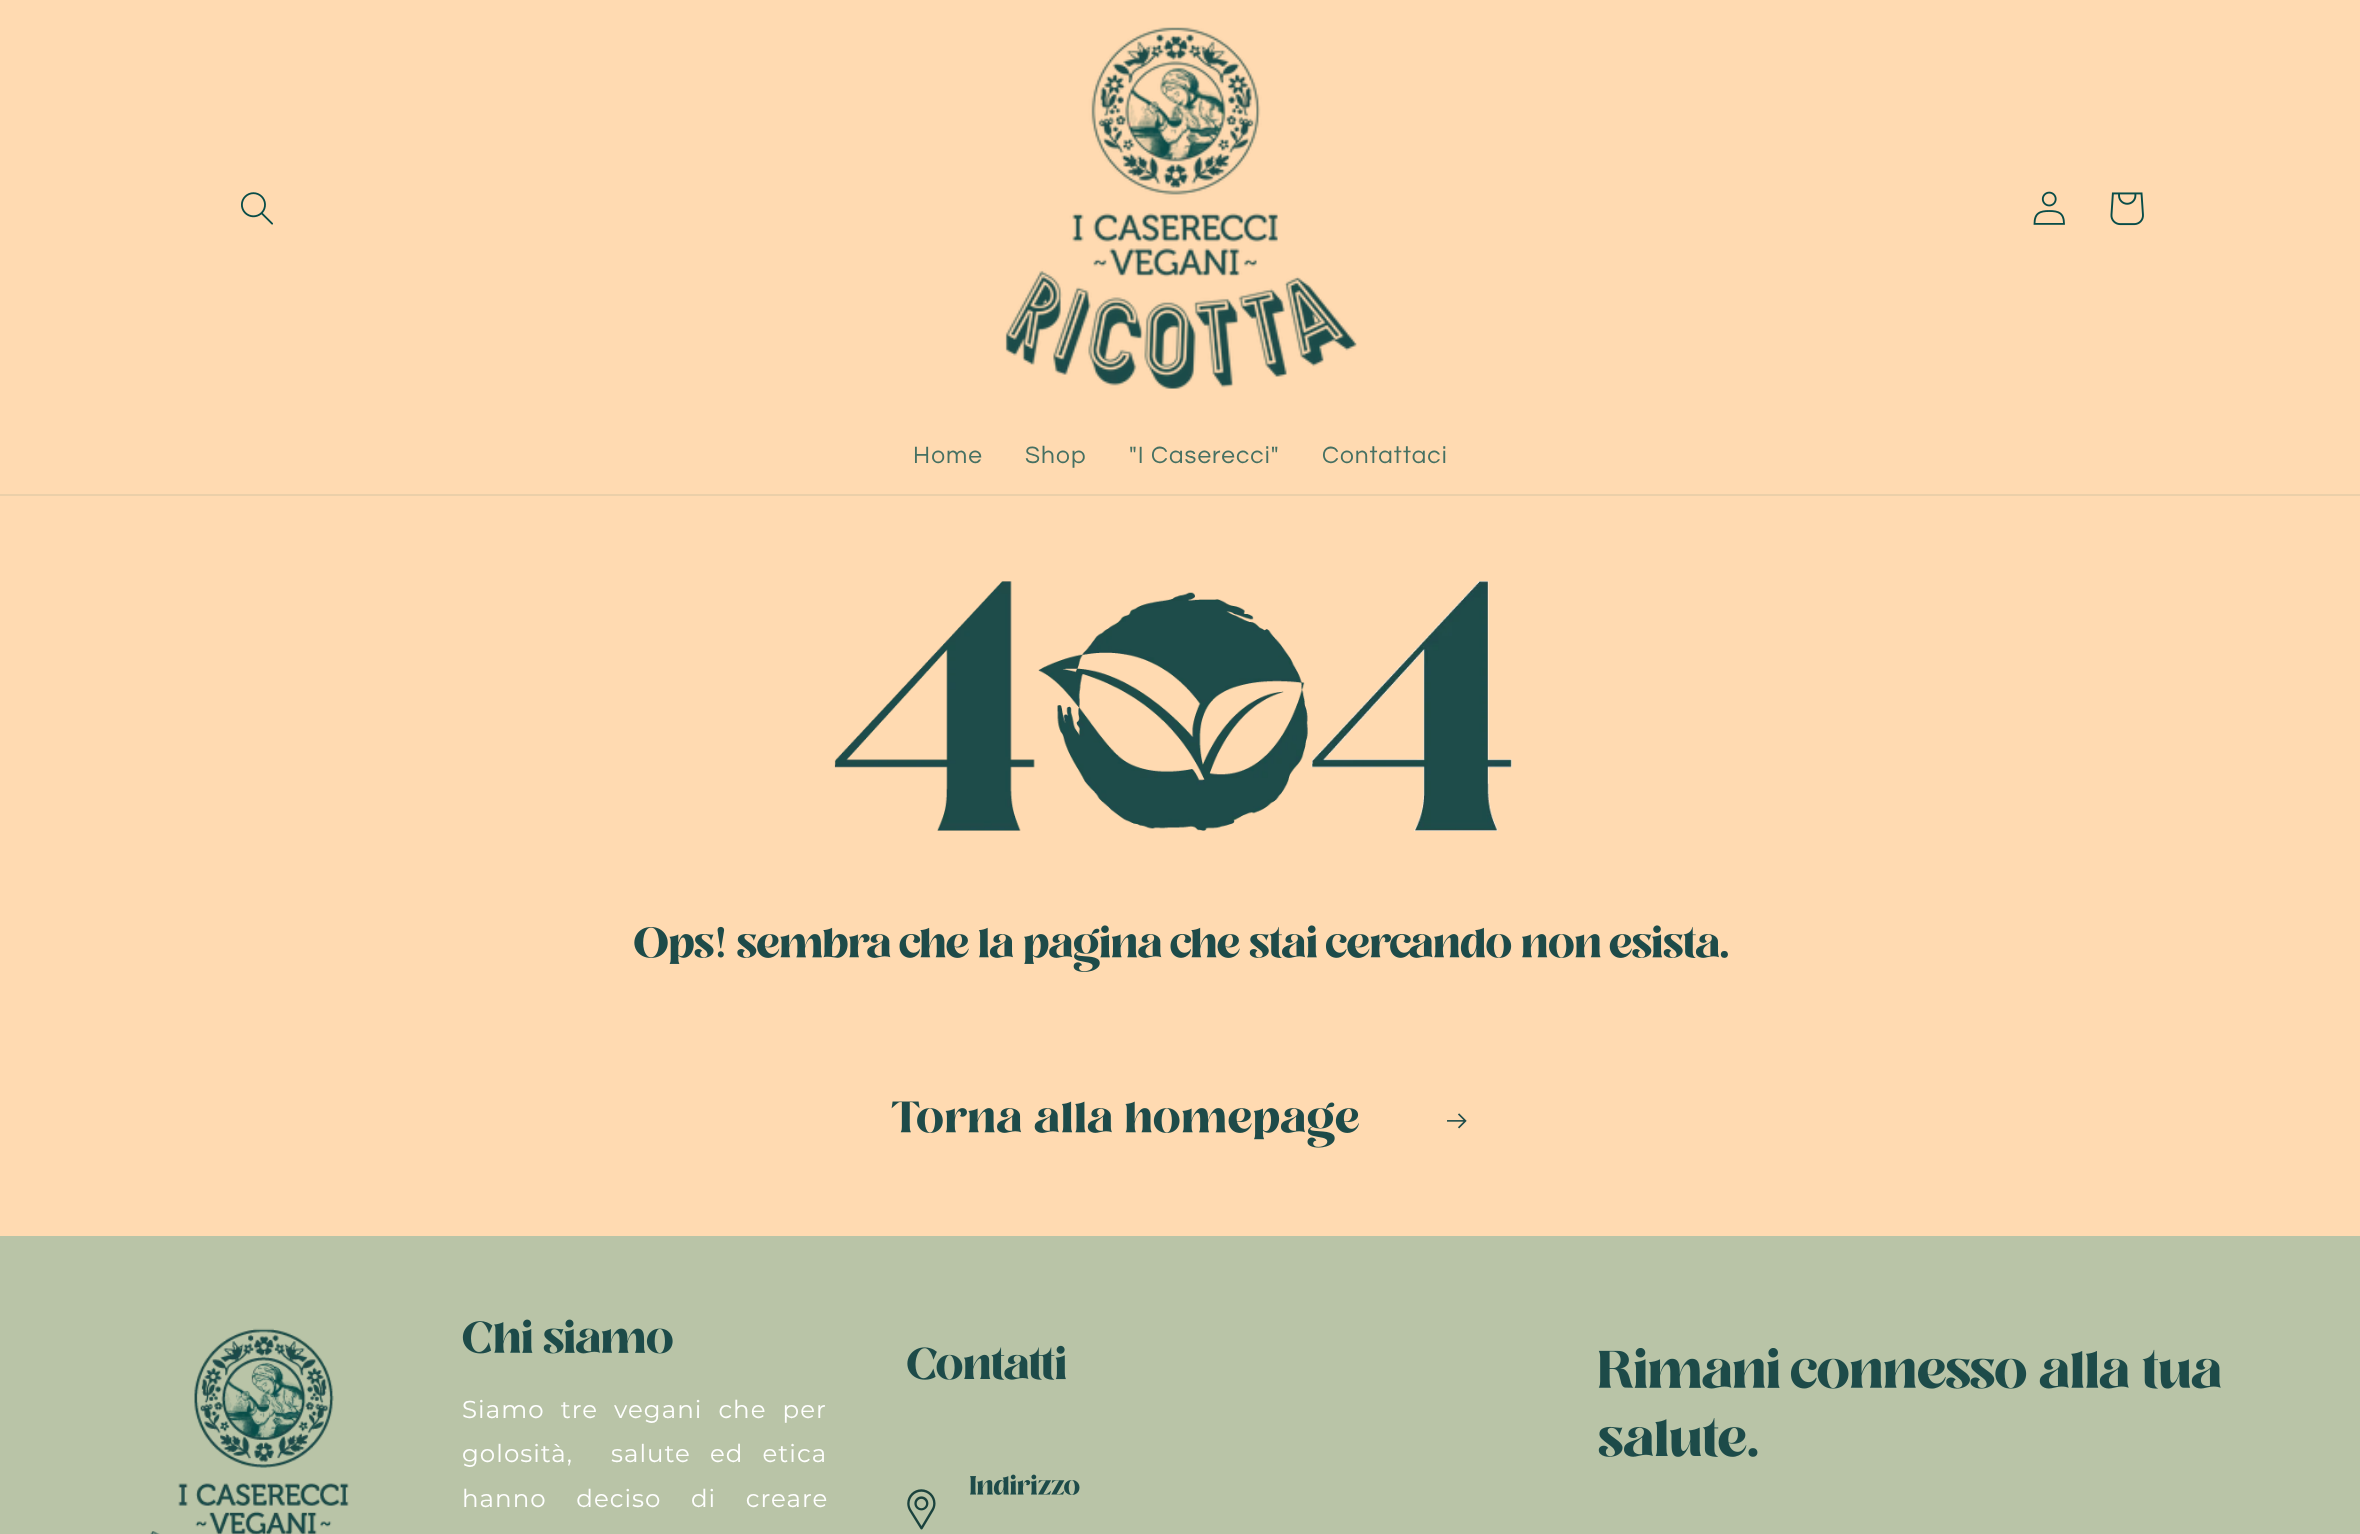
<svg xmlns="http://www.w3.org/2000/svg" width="2360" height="1534">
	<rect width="100%" height="100%" fill="#FFDAB1" />
	<rect x="0" y="494" width="2360" height="2" fill="#EBCFA9" />
	<image x="241" y="192" width="32" height="33" href="assets/img1.png" />
	<image x="1005" y="27" width="352" height="362" href="assets/img2.png" />
	<image x="2033" y="191" width="32" height="34" href="assets/img3.png" />
	<image x="2110" y="192" width="34" height="34" href="assets/img4.png" />
	<g font-family="Questrial" font-size="24.5" letter-spacing="1.05" fill="#467062">
		<text x="913" y="463">Home</text>
		<text x="1025" y="463">Shop</text>
		<text x="1129" y="463">"I Caserecci"</text>
		<text x="1322" y="463">Contattaci</text>
	</g>
	<image x="834" y="581" width="678" height="250" href="assets/img5.png" />
	<image x="634" y="925" width="1094" height="47" href="assets/img6.png" />
	<image x="891" y="1101" width="468" height="47" href="assets/img7.png" />
	<image x="1447" y="1113" width="20" height="16" href="assets/img8.png" />
	<rect x="0" y="1236" width="2360" height="298" fill="#B9C4A7" />
	<image x="150" y="1328" width="199" height="206" href="assets/img9.png" />
	<image x="462" y="1319" width="211" height="35" href="assets/img10.png" />
	<g font-family="Montserrat" font-size="24.5" letter-spacing="1.05" fill="#FFFFFF">
		<text x="462" y="1418" word-spacing="8.5">Siamo tre vegani che per</text>
		<text x="462" y="1462" word-spacing="11.5" xml:space="preserve">golosità,  salute ed etica</text>
		<text x="462" y="1507" word-spacing="22">hanno deciso di creare</text>
	</g>
	<image x="907" y="1345" width="159" height="35" href="assets/img11.png" />
	<image x="970" y="1474" width="110" height="21" href="assets/img12.png" />
	<image x="907" y="1489" width="29" height="41" href="assets/img13.png" />
	<image x="1598" y="1348" width="623" height="41" href="assets/img14.png" />
	<image x="1598" y="1418" width="160" height="39" href="assets/img15.png" />
</svg>
